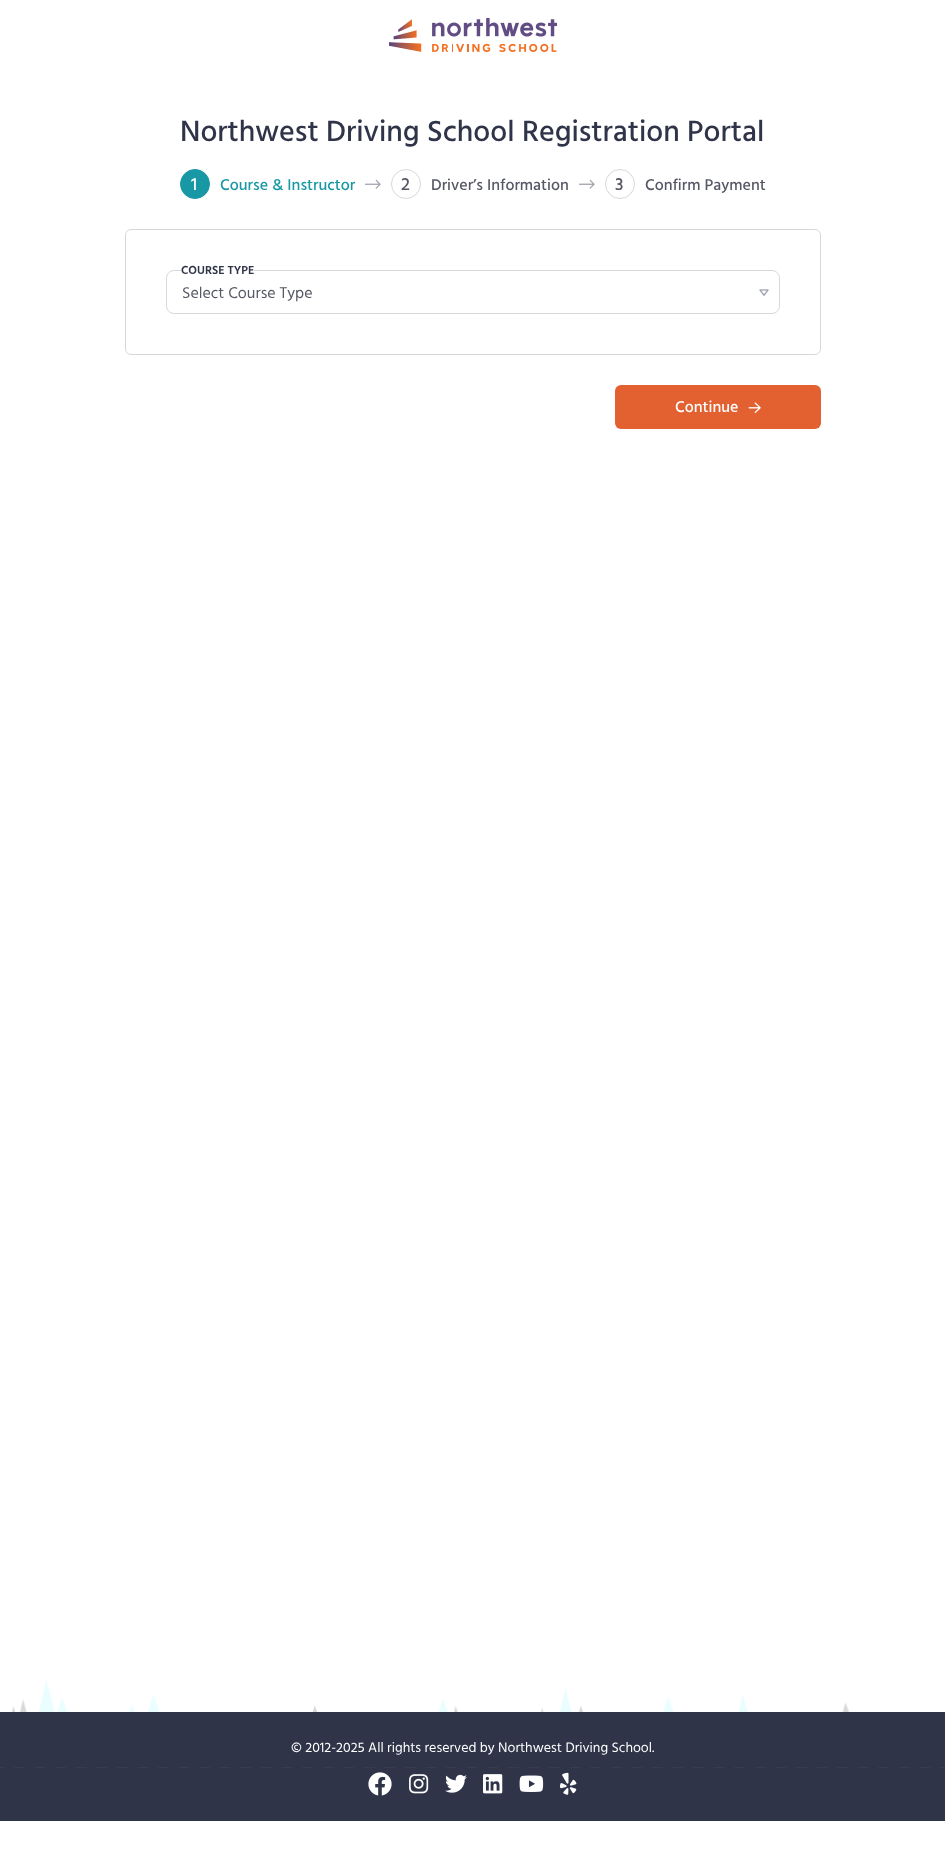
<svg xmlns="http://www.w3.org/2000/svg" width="945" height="1861">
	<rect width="100%" height="100%" fill="#FFFFFF" />
	<image x="389" y="18" width="168" height="34" href="assets/img1.png" />
	<text x="180" y="141" font-family="Hind Vadodara" font-size="30" font-weight="500" fill="#2F3448">Northwest Driving School Registration Portal</text>
	<circle cx="195" cy="184" r="14.5" fill="#1898A5" stroke="#1898A5" />
	<text x="191" y="190" font-family="Hind Vadodara" font-size="18" font-weight="500" fill="#FFFFFF">1</text>
	<text x="220" y="190" font-family="Hind Vadodara" font-size="16" font-weight="500" fill="#1898A5">Course &amp; Instructor</text>
	<image x="365" y="179" width="16" height="10" href="assets/img2.png" />
	<circle cx="406" cy="184" r="14.5" fill="none" stroke="#D8D8D8" />
	<text x="401" y="190" font-family="Hind Vadodara" font-size="18" font-weight="500" fill="#565865">2</text>
	<text x="431" y="190" font-family="Hind Vadodara" font-size="16" font-weight="500" fill="#565865">Driver’s Information</text>
	<image x="579" y="179" width="16" height="10" href="assets/img2.png" />
	<circle cx="620" cy="184" r="14.5" fill="none" stroke="#D8D8D8" />
	<text x="615" y="190" font-family="Hind Vadodara" font-size="18" font-weight="500" fill="#565865">3</text>
	<text x="645" y="190" font-family="Hind Vadodara" font-size="16" font-weight="500" fill="#565865">Confirm Payment</text>
	<rect x="125.5" y="229.5" width="695" height="125" rx="5.5" fill="none" stroke="#D8D8D8" />
	<image x="759" y="289" width="10" height="7" href="assets/img3.png" />
	<rect x="166.5" y="270.5" width="613" height="43" rx="7.5" fill="none" stroke="#D8D8D8" />
	<rect x="181" y="270" width="73" height="1" fill="#FFFFFF" />
	<text x="181" y="274" font-family="Hind Vadodara" font-size="12" font-weight="600" fill="#2F3448">COURSE TYPE</text>
	<text x="182" y="298" font-family="Hind Vadodara" font-size="16" fill="#565865">Select Course Type</text>
	<rect x="615" y="385" width="206" height="44" rx="6" fill="#E36131" />
	<text x="675" y="412" font-family="Hind Vadodara" font-size="16" font-weight="500" fill="#FFFFFF">Continue</text>
	<image x="748" y="402" width="13" height="11" href="assets/img4.png" />
	<rect x="0" y="1712" width="945" height="109" fill="#2F3448" />
	<image x="11" y="1680" width="839" height="32" href="assets/img5.png" />
	<image x="0" y="1767" width="945" height="1" href="assets/img6.png" />
	<text x="291" y="1752" font-family="Hind Vadodara" font-size="14" fill="#FFFFFF">© 2012-2025 All rights reserved by Northwest Driving School.</text>
	<image x="368" y="1772" width="24" height="24" href="assets/img7.png" />
	<image x="409" y="1774" width="20" height="20" href="assets/img8.png" />
	<image x="445" y="1774" width="22" height="19" href="assets/img9.png" />
	<image x="483" y="1774" width="20" height="20" href="assets/img10.png" />
	<image x="519" y="1775" width="25" height="17" href="assets/img11.png" />
	<image x="560" y="1772" width="17" height="23" href="assets/img12.png" />
</svg>
